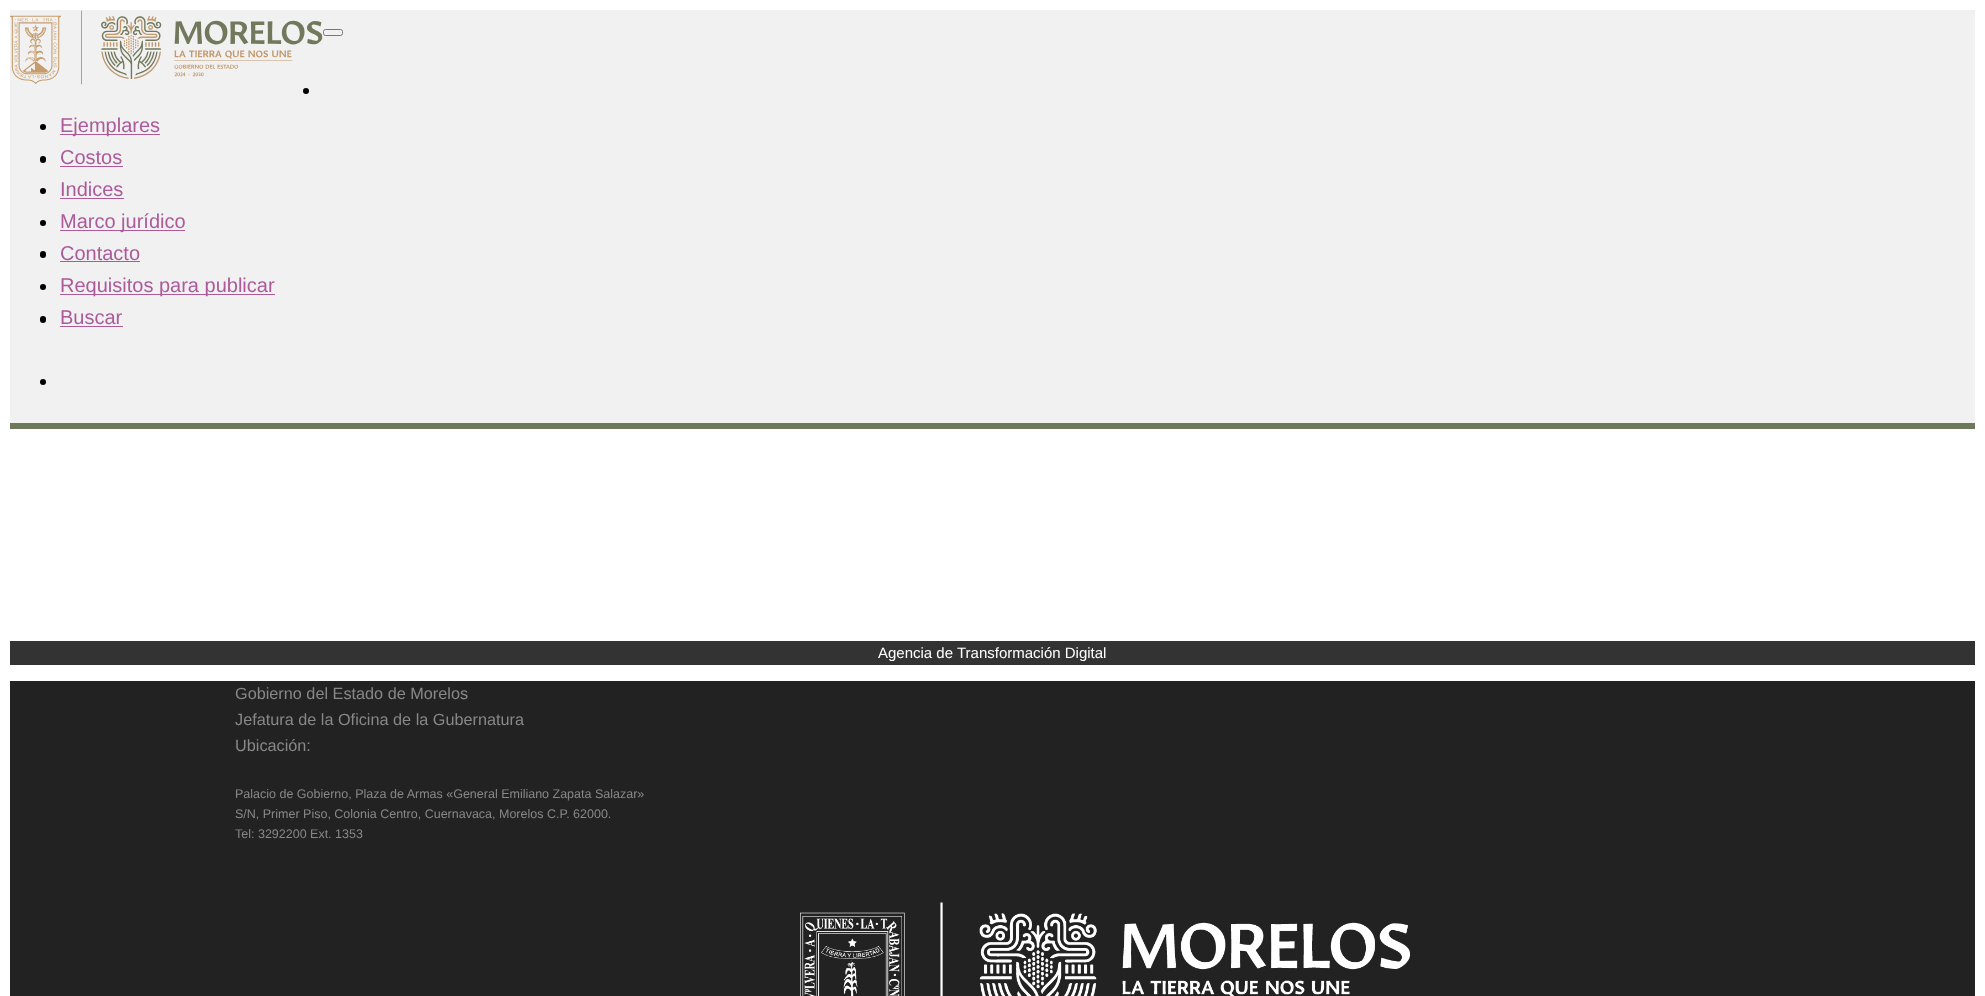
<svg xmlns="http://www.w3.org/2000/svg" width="1985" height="996">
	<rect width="100%" height="100%" fill="#FFFFFF" />
	<rect x="10" y="10" width="1965" height="413" fill="#F1F1F1" />
	<image x="10" y="10" width="313" height="75" href="assets/img1.png" />
	<rect x="10" y="423" width="1965" height="6" fill="#6E7959" />
	<rect x="323.5" y="29.5" width="19" height="6" rx="2" fill="none" stroke="#767676" />
	<circle cx="306" cy="91" r="3" fill="#000000" />
	<circle cx="43" cy="127" r="3" fill="#000000" />
	<rect x="60" y="134" width="100" height="1" fill="#AC5A9A" />
	<text x="60" y="132" font-family="Liberation Sans" font-size="20" fill="#AC5A9A">Ejemplares</text>
	<rect x="40" y="156" width="6" height="7" rx="3" fill="#000000" />
	<text x="60" y="164" font-family="Liberation Sans" font-size="20" fill="#AC5A9A">Costos</text>
	<rect x="60" y="166" width="63" height="1" fill="#AC5A9A" />
	<circle cx="43" cy="191" r="3" fill="#000000" />
	<text x="60" y="196" font-family="Liberation Sans" font-size="20" fill="#AC5A9A">Indices</text>
	<rect x="60" y="198" width="64" height="1" fill="#AC5A9A" />
	<circle cx="43" cy="223" r="3" fill="#000000" />
	<rect x="60" y="230" width="125" height="1" fill="#AC5A9A" />
	<text x="60" y="228" font-family="Liberation Sans" font-size="20" fill="#AC5A9A">Marco jurídico</text>
	<rect x="40" y="251" width="6" height="7" rx="3" fill="#000000" />
	<text x="60" y="260" font-family="Liberation Sans" font-size="20" fill="#AC5A9A">Contacto</text>
	<rect x="60" y="261" width="80" height="1" fill="#AC5A9A" />
	<circle cx="43" cy="287" r="3" fill="#000000" />
	<rect x="60" y="294" width="215" height="1" fill="#AC5A9A" />
	<text x="60" y="292" font-family="Liberation Sans" font-size="20" fill="#AC5A9A">Requisitos para publicar</text>
	<rect x="40" y="316" width="6" height="7" rx="3" fill="#000000" />
	<text x="60" y="324" font-family="Liberation Sans" font-size="20" fill="#AC5A9A">Buscar</text>
	<rect x="60" y="326" width="63" height="1" fill="#AC5A9A" />
	<circle cx="43" cy="382" r="3" fill="#000000" />
	<rect x="10" y="641" width="1965" height="24" fill="#333333" />
	<text x="878" y="658" font-family="Liberation Sans" font-size="15" fill="#FFFFFF">Agencia de Transformación Digital</text>
	<rect x="10" y="681" width="1965" height="315" fill="#222222" />
	<g font-family="Liberation Sans" font-size="16.25" fill="#888888">
		<text x="235" y="699">Gobierno del Estado de Morelos</text>
		<text x="235" y="725">Jefatura de la Oficina de la Gubernatura</text>
		<text x="235" y="751">Ubicación:</text>
	</g>
	<g font-family="Liberation Sans" font-size="12.5" fill="#888888">
		<text x="235" y="798">Palacio de Gobierno, Plaza de Armas «General Emiliano Zapata Salazar»</text>
		<text x="235" y="818">S/N, Primer Piso, Colonia Centro, Cuernavaca, Morelos C.P. 62000.</text>
		<text x="235" y="838">Tel: 3292200 Ext. 1353</text>
	</g>
	<image x="800" y="902" width="610" height="94" href="assets/img2.png" />
</svg>
